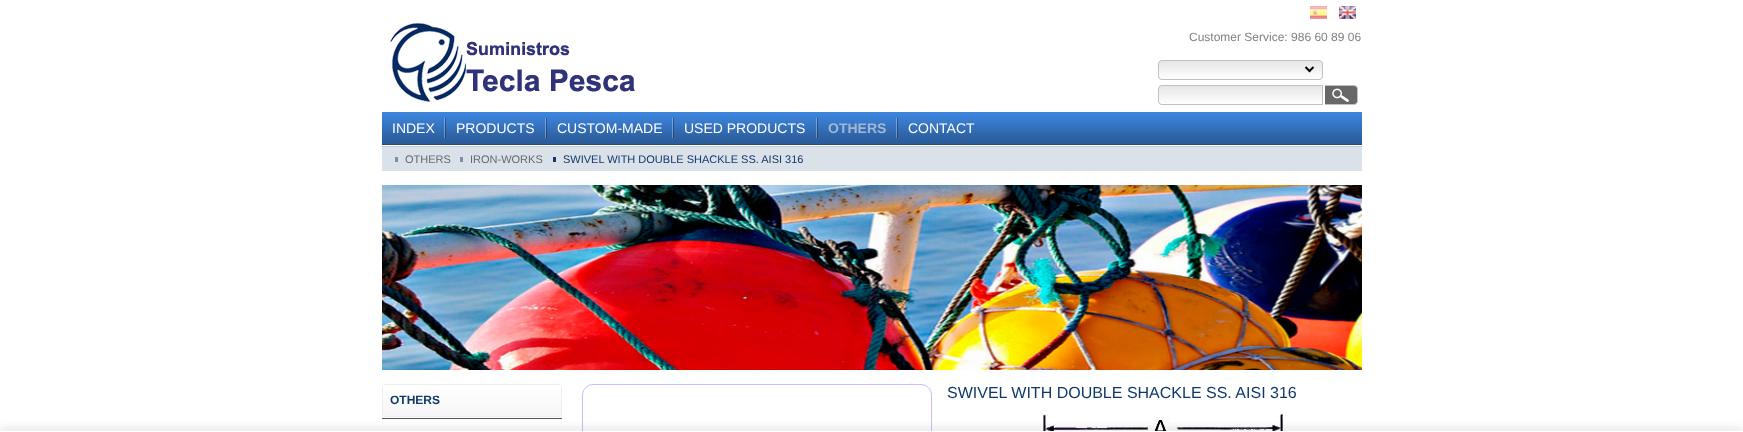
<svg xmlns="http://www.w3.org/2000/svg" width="1743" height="432">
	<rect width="100%" height="100%" fill="#FFFFFF" />
	<rect x="382" y="146" width="980" height="1" fill="#C8C8C8" />
	<image x="1310" y="6" width="17" height="13" href="assets/img1.png" />
	<image x="1339" y="6" width="17" height="13" href="assets/img2.png" />
	<image x="390" y="23" width="245" height="79" href="assets/img3.png" />
	<text x="1189" y="41" font-family="Liberation Sans" font-size="12" fill="#808080">Customer Service: 986 60 89 06</text>
	<image x="1158" y="60" width="165" height="20" href="assets/img4.png" />
	<path d="M1305.5 67L1309.5 71L1313.5 67" fill="none" stroke="#000000" stroke-width="2" />
	<image x="1158" y="85" width="165" height="20" href="assets/img5.png" />
	<image x="1325" y="85" width="33" height="20" href="assets/img6.png" />
	<image x="382" y="112" width="980" height="33" href="assets/img7.png" />
	<text x="392" y="133" font-family="Liberation Sans" font-size="14" fill="#FFFFFF">INDEX</text>
	<image x="444" y="118" width="2" height="20" href="assets/img8.png" />
	<text x="456" y="133" font-family="Liberation Sans" font-size="14" fill="#FFFFFF">PRODUCTS</text>
	<image x="545" y="118" width="2" height="20" href="assets/img8.png" />
	<text x="557" y="133" font-family="Liberation Sans" font-size="14" fill="#FFFFFF">CUSTOM-MADE</text>
	<image x="672" y="118" width="2" height="20" href="assets/img8.png" />
	<text x="684" y="133" font-family="Liberation Sans" font-size="14" fill="#FFFFFF">USED PRODUCTS</text>
	<image x="816" y="118" width="2" height="20" href="assets/img8.png" />
	<text x="828" y="133" font-family="Liberation Sans" font-size="14" font-weight="700" fill="#A2B7D1">OTHERS</text>
	<image x="896" y="118" width="2" height="20" href="assets/img8.png" />
	<text x="908" y="133" font-family="Liberation Sans" font-size="14" fill="#FFFFFF">CONTACT</text>
	<rect x="382" y="147" width="980" height="24" fill="#DBE1E9" />
	<text x="405" y="163" font-family="Liberation Sans" font-size="11" fill="#68686B">OTHERS</text>
	<rect x="395" y="157" width="3" height="5" fill="#7B90A9" />
	<text x="470" y="163" font-family="Liberation Sans" font-size="11" fill="#68686B">IRON-WORKS</text>
	<rect x="460" y="157" width="3" height="5" fill="#7B90A9" />
	<text x="563" y="163" font-family="Liberation Sans" font-size="11" fill="#0F396C">SWIVEL WITH DOUBLE SHACKLE SS. AISI 316</text>
	<rect x="553" y="157" width="3" height="5" fill="#0F396C" />
	<image x="382" y="185" width="980" height="185" href="assets/img9.png" />
	<rect x="582.5" y="384.5" width="349" height="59" rx="10.5" fill="none" stroke="#C0C2FC" />
	<text x="947" y="398" font-family="Liberation Sans" font-size="16" fill="#0F396C">SWIVEL WITH DOUBLE SHACKLE SS. AISI 316</text>
	<image x="1043" y="414" width="240" height="17" href="assets/img10.png" />
	<image x="382" y="384" width="180" height="33" href="assets/img11.png" />
	<text x="390" y="404" font-family="Liberation Sans" font-size="12" font-weight="700" fill="#0F396C">OTHERS</text>
	<rect x="382" y="418" width="180" height="1" fill="#51565C" />
	<rect x="0" y="431" width="1743" height="1" fill="#444444" filter="blur(5px)" />
	<rect x="0" y="431" width="1743" height="1" fill="#FFFFFF" />
</svg>
